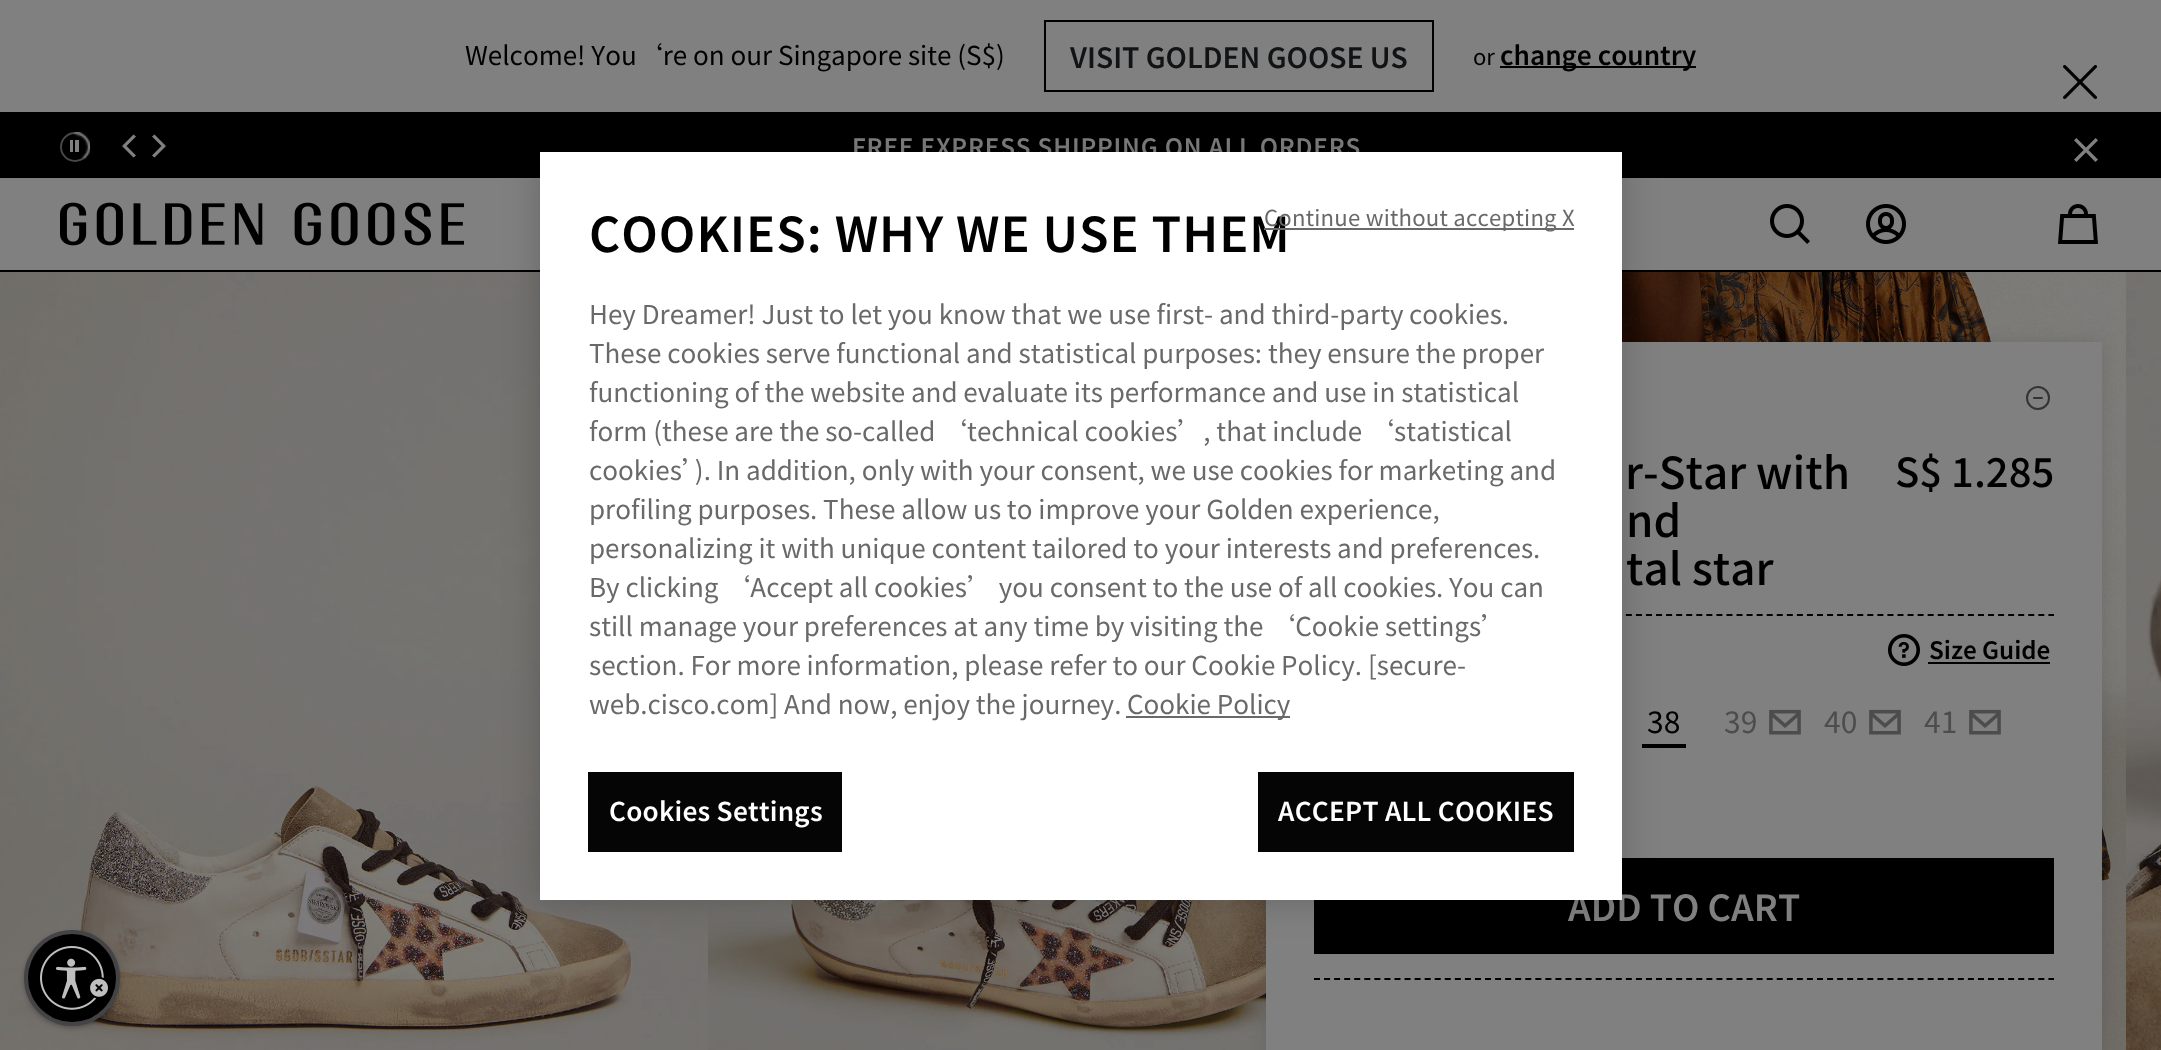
<svg xmlns="http://www.w3.org/2000/svg" width="2161" height="1050">
	<style>*{font-kerning:none!important;font-variant-ligatures:none!important}</style>
	<defs>
		<clipPath id="clip1"><rect x="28" y="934" width="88" height="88" rx="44" /></clipPath>
	</defs>
	<rect width="100%" height="100%" fill="#808080" />
	<text x="465" y="65" font-family="Noto Sans SC" font-size="26" fill="#000000">Welcome! You‘re on our Singapore site (S$)</text>
	<rect x="1045" y="21" width="388" height="70" fill="none" stroke="#000000" stroke-width="2" />
	<text x="1070" y="68" font-family="Noto Sans SC" font-size="28" font-weight="600" fill="#111315">VISIT GOLDEN GOOSE US</text>
	<text x="1473" y="65" font-family="Noto Sans SC" font-size="22" fill="#000000">or</text>
	<rect x="1500" y="66" width="196" height="2" fill="#000000" />
	<text x="1500" y="65" font-family="Noto Sans SC" font-size="26" font-weight="600" fill="#000000">change country</text>
	<image x="2063" y="65" width="34" height="34" href="assets/img1.png" />
	<rect x="0" y="112" width="2161" height="66" fill="#000000" />
	<circle cx="75" cy="147" r="14" fill="none" stroke="#4D4D4D" stroke-width="2" />
	<image x="60" y="132" width="30" height="30" href="assets/img2.png" />
	<rect x="70" y="140" width="3" height="12" fill="#808080" />
	<rect x="75" y="140" width="4" height="12" fill="#808080" />
	<path d="M124.5 148.5L133.5 157.5L136 155.5L126.5 146L136 136.5L133.5 134.5L122 146Z" fill="#808080" />
	<path d="M163.5 148.5L154.5 157.5L152 155.5L161.5 146L152 136.5L154.5 134.5L166 146Z" fill="#808080" />
	<text x="852" y="156" font-family="Noto Sans SC" font-size="24" font-weight="600" letter-spacing="0.8" fill="#808080">FREE EXPRESS SHIPPING ON ALL ORDERS</text>
	<image x="2074" y="138" width="24" height="24" href="assets/img3.png" />
	<rect x="0" y="270" width="2161" height="2" fill="#000000" />
	<image x="60" y="202" width="404" height="44" href="assets/img4.png" />
	<image x="1770" y="204" width="40" height="40" href="assets/img5.png" />
	<image x="1866" y="204" width="40" height="40" href="assets/img6.png" />
	<image x="2058" y="204" width="40" height="40" href="assets/img7.png" />
	<image x="0" y="272" width="708" height="778" href="assets/img8.png" />
	<image x="708" y="900" width="558" height="150" href="assets/img9.png" />
	<image x="1622" y="272" width="504" height="778" href="assets/img10.png" />
	<image x="2126" y="272" width="35" height="778" href="assets/img11.png" />
	<rect x="1266" y="342" width="836" height="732" fill="#000000" fill-opacity="0.1" filter="blur(8px)" />
	<rect x="1266" y="342" width="836" height="708" fill="#808080" />
	<path d="M2034 398H2042" fill="none" stroke="#333333" stroke-width="2" stroke-linecap="round" />
	<circle cx="2038" cy="398" r="11" fill="none" stroke="#333333" stroke-width="2" />
	<g font-family="Noto Sans SC" font-size="44" font-weight="500" fill="#000000">
		<text x="1625" y="489">r-Star with</text>
		<text x="1626" y="537">nd</text>
		<text x="1626" y="585">tal star</text>
	</g>
	<text x="1895" y="487" font-family="Noto Sans SC" font-size="40" font-weight="500" fill="#000000">S$ 1.285</text>
	<path d="M1314 615H2054" fill="none" stroke="#000000" stroke-width="2" stroke-dasharray="6 4.06" />
	<image x="1888" y="634" width="32" height="32" href="assets/img12.png" />
	<text x="1929" y="659" font-family="Noto Sans SC" font-size="24" font-weight="600" fill="#000000">Size Guide</text>
	<rect x="1928" y="662" width="122" height="2" fill="#000000" />
	<rect x="1642" y="744" width="44" height="4" fill="#000000" />
	<text x="1647" y="733" font-family="Noto Sans SC" font-size="30" fill="#000000">38</text>
	<text x="1724" y="733" font-family="Noto Sans SC" font-size="30" fill="#4D4D4D">39</text>
	<image x="1769" y="709" width="32" height="26" href="assets/img13.png" />
	<text x="1824" y="733" font-family="Noto Sans SC" font-size="30" fill="#4D4D4D">40</text>
	<image x="1869" y="709" width="32" height="26" href="assets/img13.png" />
	<text x="1924" y="733" font-family="Noto Sans SC" font-size="30" fill="#4D4D4D">41</text>
	<image x="1969" y="709" width="32" height="26" href="assets/img13.png" />
	<rect x="1314" y="858" width="740" height="96" fill="#000000" />
	<text x="1568" y="921" font-family="Noto Sans SC" font-size="36" font-weight="600" fill="#808080">ADD TO CART</text>
	<path d="M1314 979H2054" fill="none" stroke="#000000" stroke-width="2" stroke-dasharray="6 4.06" />
	<rect x="540" y="152" width="1082" height="748" fill="#000000" fill-opacity="0.2" filter="blur(18px)" />
	<rect x="540" y="152" width="1082" height="748" fill="#FFFFFF" />
	<text x="589" y="252" font-family="Noto Sans SC" font-size="48" font-weight="600" letter-spacing="1" fill="#000000">COOKIES: WHY WE USE THEM</text>
	<rect x="1264" y="228" width="310" height="2" fill="#696969" />
	<text x="1264" y="226" font-family="Noto Sans SC" font-size="22.1" letter-spacing="0.25" fill="#696969">Continue without accepting X</text>
	<g font-family="Noto Sans SC" font-size="26" fill="#696969">
		<text x="589" y="324">Hey Dreamer! Just to let you know that we use first- and third-party</text>
		<text x="1409" y="324">cookies.</text>
		<text x="589" y="363">These cookies serve functional and statistical purposes: they ensure the proper</text>
		<text x="589" y="402">functioning of the website and evaluate its performance and use in statistical</text>
		<text x="589" y="441">form (these are the so-called ‘technical cookies’, that include ‘statistical</text>
		<text x="589" y="480">cookies’). In addition, only with your consent, we use cookies for marketing and</text>
		<text x="589" y="519">profiling purposes. These allow us to improve your Golden experience,</text>
		<text x="589" y="558">personalizing it with unique content tailored to your interests</text>
		<text x="1337" y="558">and preferences.</text>
		<text x="589" y="597">By clicking ‘Accept all cookies’ you consent to the use of all cookies.</text>
		<text x="1449" y="597">You can</text>
		<text x="589" y="636">still manage your preferences at any time by visiting the ‘Cookie settings’</text>
		<text x="589" y="675">section. For more information, please refer to our Cookie Policy.</text>
		<text x="1368" y="675">[secure-</text>
		<text x="589" y="714">web.cisco.com] And now, enjoy the journey.</text>
	</g>
	<rect x="1126" y="716" width="164" height="2" fill="#696969" />
	<text x="1127" y="714" font-family="Noto Sans SC" font-size="26" fill="#696969">Cookie Policy</text>
	<rect x="588" y="772" width="254" height="80" fill="#050505" />
	<text x="609" y="821" font-family="Noto Sans SC" font-size="26" font-weight="600" letter-spacing="0.25" fill="#FFFFFF">Cookies Settings</text>
	<rect x="1258" y="772" width="316" height="80" fill="#050505" />
	<text x="1278" y="821" font-family="Noto Sans SC" font-size="26" font-weight="600" letter-spacing="0.25" fill="#FFFFFF">ACCEPT ALL COOKIES</text>
	<rect x="24" y="932" width="96" height="96" rx="48" fill="#000000" fill-opacity="0.24" filter="blur(2px)" />
	<circle cx="72" cy="978" r="46" fill="none" stroke="#444446" stroke-width="4" />
	<g clip-path="url(#clip1)">
		<rect x="28" y="936" width="88" height="88" rx="44" fill="#000000" fill-opacity="0.24" filter="blur(2px)" />
	</g>
	<circle cx="72" cy="978" r="44" fill="#000000" />
	<image x="40" y="946" width="68" height="64" href="assets/img14.png" />
</svg>
